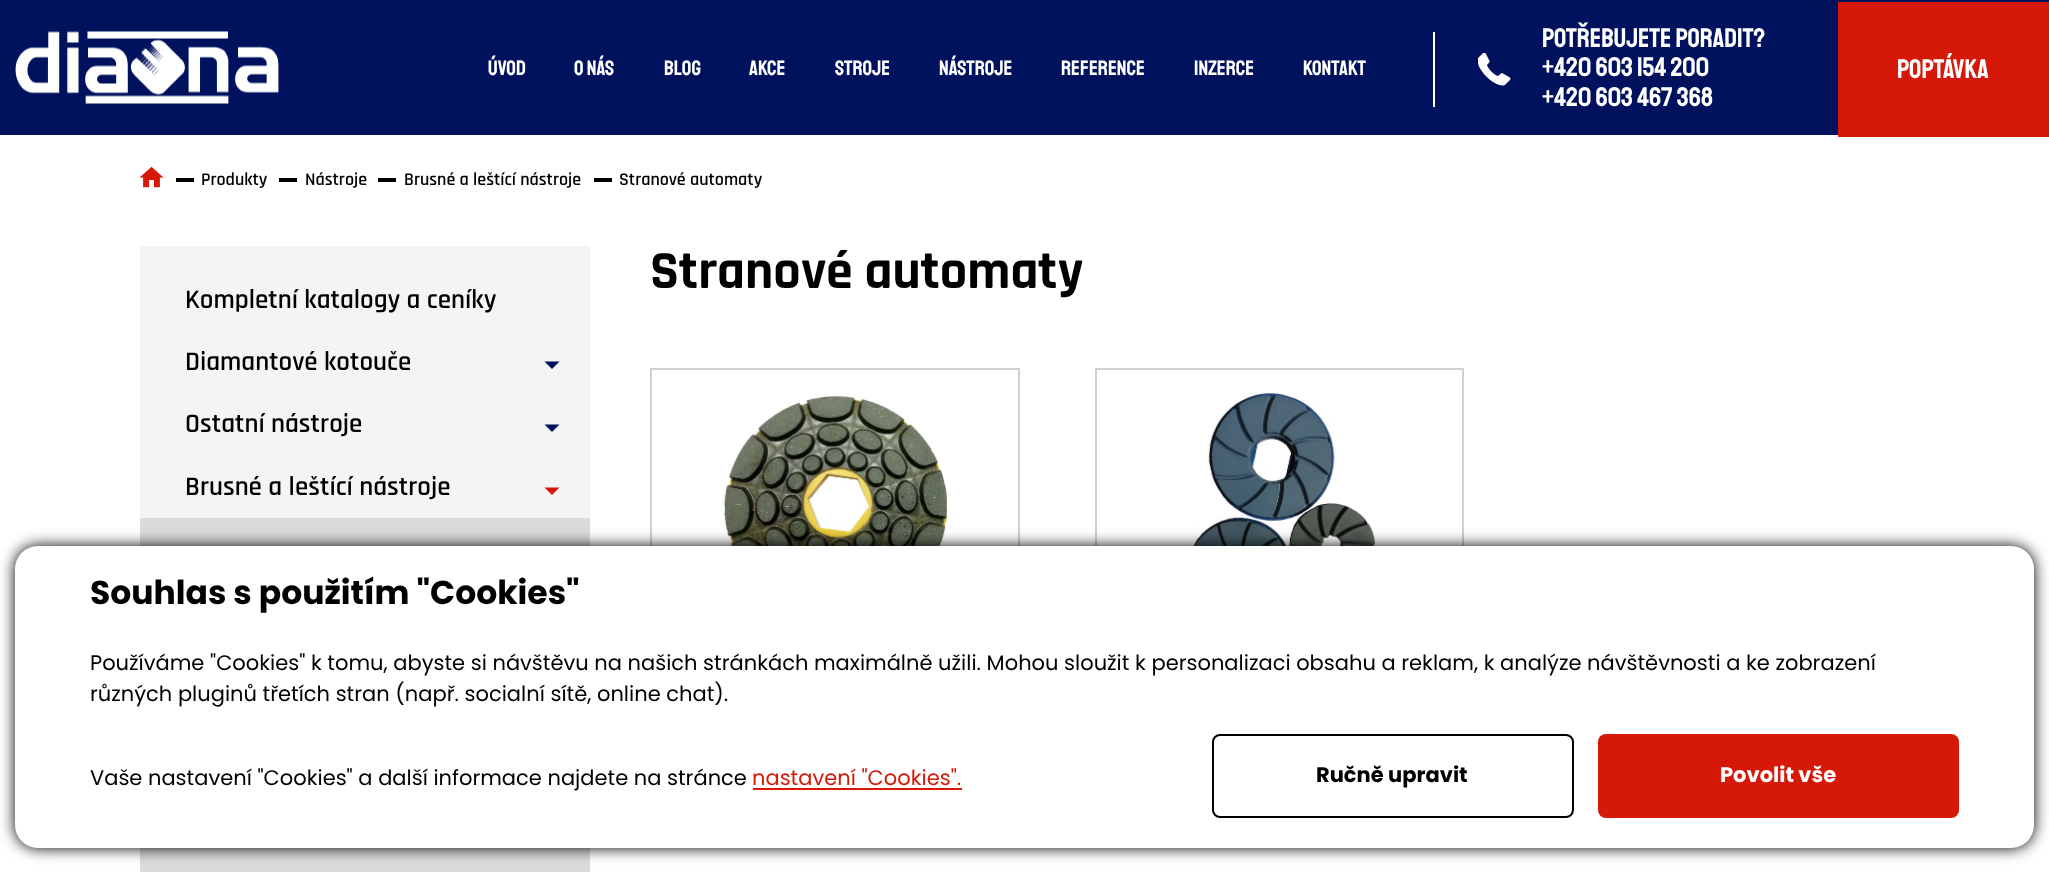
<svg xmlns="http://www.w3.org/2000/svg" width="2049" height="872">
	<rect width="100%" height="100%" fill="#FFFFFF" />
	<rect x="0" y="0" width="2049" height="135" fill="#00125E" />
	<image x="15" y="31" width="264" height="73" href="assets/img1.png" />
	<g font-family="Staatliches" font-size="21" fill="#FFFFFF">
		<text x="488" y="75">Úvod</text>
		<text x="574" y="75">O nás</text>
		<text x="664" y="75">Blog</text>
		<text x="749" y="75">Akce</text>
		<text x="835" y="75">Stroje</text>
		<text x="939" y="75">Nástroje</text>
		<text x="1061" y="75">Reference</text>
		<text x="1194" y="75">Inzerce</text>
		<text x="1303" y="75">Kontakt</text>
	</g>
	<rect x="1433" y="32" width="2" height="75" fill="#FFFFFF" />
	<text x="1542" y="47" font-family="Staatliches" font-size="27" fill="#FFFFFF">POTŘEBUJETE PORADIT?</text>
	<image x="1478" y="53" width="33" height="33" href="assets/img2.png" />
	<g font-family="Staatliches" font-size="27" fill="#FFFFFF">
		<text x="1542" y="76">+420 603 154 200</text>
		<text x="1542" y="106">+420 603 467 368</text>
	</g>
	<rect x="1838" y="2" width="211" height="135" fill="#D51808" />
	<text x="1897" y="78" font-family="Staatliches" font-size="27" fill="#FFFFFF">POPTÁVKA</text>
	<image x="140" y="166" width="24" height="22" href="assets/img3.png" />
	<rect x="176" y="178" width="18" height="4" fill="#000000" />
	<text x="201" y="185" font-family="Rajdhani" font-size="18" font-weight="600" fill="#000000">Produkty</text>
	<rect x="279" y="178" width="18" height="4" fill="#000000" />
	<text x="305" y="185" font-family="Rajdhani" font-size="18" font-weight="600" fill="#000000">Nástroje</text>
	<rect x="378" y="178" width="18" height="4" fill="#000000" />
	<text x="404" y="185" font-family="Rajdhani" font-size="18" font-weight="600" fill="#000000">Brusné a leštící nástroje</text>
	<rect x="594" y="178" width="18" height="4" fill="#000000" />
	<text x="619" y="185" font-family="Rajdhani" font-size="18" font-weight="600" fill="#000000">Stranové automaty</text>
	<text x="650" y="288" font-family="Rajdhani" font-size="54" font-weight="700" fill="#000000">Stranové automaty</text>
	<rect x="651" y="369" width="368" height="457" fill="none" stroke="#D0D0D0" stroke-width="2" />
	<image x="723" y="395" width="225" height="151" href="assets/img4.png" />
	<rect x="1096" y="369" width="367" height="457" fill="none" stroke="#D0D0D0" stroke-width="2" />
	<image x="1186" y="392" width="190" height="154" href="assets/img5.png" />
	<rect x="140" y="246" width="450" height="272" fill="#F4F4F4" />
	<g font-family="Rajdhani" font-size="27" font-weight="600" fill="#000000">
		<text x="185" y="308">Kompletní katalogy a ceníky</text>
		<text x="185" y="370">Diamantové kotouče</text>
	</g>
	<path d="M544.5 361.5H559.5L552 369Z" fill="#00125E" />
	<text x="185" y="432" font-family="Rajdhani" font-size="27" font-weight="600" fill="#000000">Ostatní nástroje</text>
	<path d="M544.5 424.5H559.5L552 432Z" fill="#00125E" />
	<text x="185" y="495" font-family="Rajdhani" font-size="27" font-weight="600" fill="#000000">Brusné a leštící nástroje</text>
	<path d="M544.5 487.5H559.5L552 495Z" fill="#D51808" />
	<rect x="140" y="518" width="450" height="354" fill="#DCDBDB" />
	<rect x="15" y="546" width="2019" height="302" rx="23" fill="#000000" filter="blur(7.5px)" />
	<rect x="15" y="546" width="2019" height="302" rx="23" fill="#FFFFFF" />
	<text x="90" y="604" font-family="Poppins" font-size="33" font-weight="700" fill="#000000">Souhlas s použitím "Cookies"</text>
	<g font-family="Poppins" font-size="21" fill="#000000">
		<text x="90" y="670">Používáme "Cookies" k tomu, abyste si návštěvu na našich stránkách maximálně užili. Mohou sloužit k personalizaci obsahu a reklam, k analýze návštěvnosti a ke zobrazení</text>
		<text x="90" y="701">různých pluginů třetích stran (např. socialní sítě, online chat).</text>
		<text x="90" y="785">Vaše nastavení "Cookies" a další informace najdete na stránce</text>
	</g>
	<text x="752" y="785" font-family="Poppins" font-size="21" fill="#D51808">nastavení "Cookies".</text>
	<rect x="753" y="788" width="209" height="2" fill="#D51808" />
	<rect x="1213" y="735" width="360" height="82" rx="7" fill="none" stroke="#000000" stroke-width="2" />
	<text x="1316" y="782" font-family="Poppins" font-size="21" font-weight="700" fill="#000000">Ručně upravit</text>
	<rect x="1598" y="734" width="361" height="84" rx="8" fill="#D51808" />
	<text x="1720" y="782" font-family="Poppins" font-size="21" font-weight="700" fill="#FFFFFF">Povolit vše</text>
</svg>
